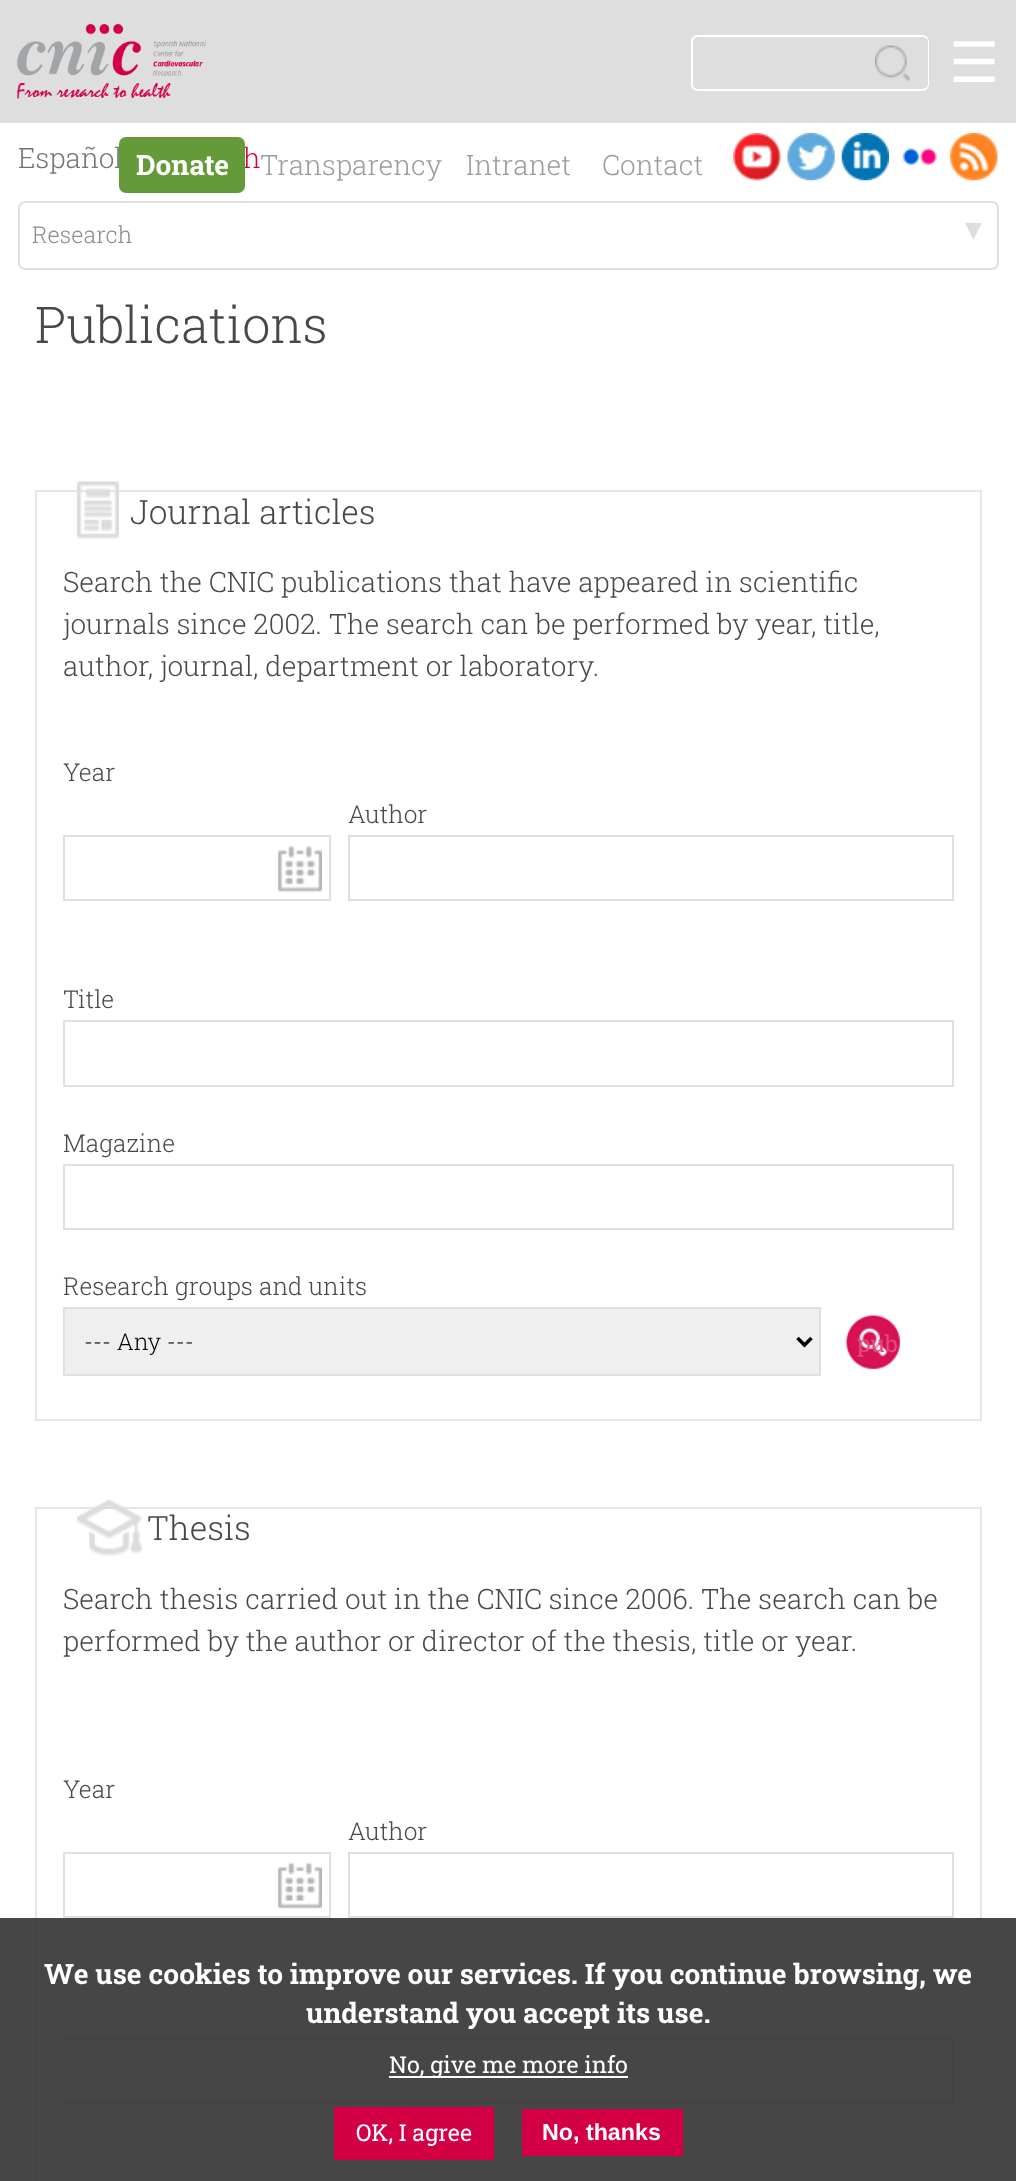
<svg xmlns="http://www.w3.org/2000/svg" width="1016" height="2181">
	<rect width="100%" height="100%" fill="#FFFFFF" />
	<rect x="0" y="0" width="1016" height="123" fill="#DEDEDE" />
	<text x="949" y="82" font-family="DejaVu Sans" font-size="56" fill="#FFFFFF">☰</text>
	<image x="16" y="24" width="190" height="75" href="assets/img1.png" />
	<path d="M698 35H858V91H698C694 91 691 88 691 84V42C691 38 694 35 698 35ZM698 37H858V89H698C695 89 693 87 693 84V42C693 39 695 37 698 37Z" fill="#FFFFFF" fill-rule="evenodd" />
	<image x="875" y="45" width="35" height="36" href="assets/img2.png" />
	<path d="M858 35H922C926 35 929 38 929 42V84C929 88 926 91 922 91H858ZM858 37H922C925 37 928 39 928 42V84C928 87 925 89 922 89H858Z" fill="#FFFFFF" fill-rule="evenodd" />
	<text x="18" y="168" font-family="Roboto Slab" font-size="28" font-weight="300" fill="#747474">Español</text>
	<text x="243" y="168" font-family="Roboto Slab" font-size="28" font-weight="300" fill="#D40046">h</text>
	<image x="733" y="133" width="48" height="48" href="assets/img3.png" />
	<image x="787" y="133" width="48" height="48" href="assets/img4.png" />
	<image x="841" y="133" width="48" height="48" href="assets/img5.png" />
	<image x="902" y="148" width="36" height="17" href="assets/img6.png" />
	<image x="950" y="133" width="48" height="48" href="assets/img7.png" />
	<rect x="119" y="137" width="126" height="56" rx="7" fill="#659A38" />
	<text x="136" y="175" font-family="Roboto Slab" font-size="28" font-weight="700" fill="#FFFFFF">Donate</text>
	<g font-family="Roboto Slab" font-size="28" font-weight="300" fill="#9B9B9B">
		<text x="260" y="175">Transparency</text>
		<text x="466" y="175">Intranet</text>
		<text x="602" y="175">Contact</text>
	</g>
	<rect x="19" y="202" width="979" height="67" rx="6" fill="none" stroke="#E0E0E0" stroke-width="2" />
	<text x="32" y="243" font-family="Roboto Slab" font-size="23.25" font-weight="300" fill="#8B8B8B">Research</text>
	<text x="965" y="240" font-family="DejaVu Sans" font-size="33.5" fill="#DEDEDE">▾</text>
	<text x="35" y="343" font-family="Roboto Slab" font-size="50.5" font-weight="300" fill="#484848">Publications</text>
	<rect x="36" y="491" width="945" height="929" fill="none" stroke="#E6E6E6" stroke-width="2" />
	<image x="77" y="481" width="42" height="58" href="assets/img8.png" />
	<text x="130" y="524" font-family="Roboto Slab" font-size="33.5" font-weight="300" fill="#484848">Journal articles</text>
	<g font-family="Roboto Slab" font-size="28" font-weight="300" fill="#484848">
		<text x="63" y="592">Search the CNIC publications that have appeared in scientific</text>
		<text x="63" y="634">journals since 2002. The search can be performed by year, title,</text>
		<text x="63" y="676">author, journal, department or laboratory.</text>
	</g>
	<text x="63" y="781" font-family="Roboto Slab" font-size="24.5" font-weight="300" fill="#484848">Year</text>
	<image x="278" y="845" width="44" height="48" href="assets/img9.png" />
	<rect x="64" y="836" width="266" height="64" fill="none" stroke="#E0E0E0" stroke-width="2" />
	<text x="348" y="823" font-family="Roboto Slab" font-size="24.5" font-weight="300" fill="#484848">Author</text>
	<rect x="349" y="836" width="604" height="64" fill="none" stroke="#E0E0E0" stroke-width="2" />
	<text x="63" y="1008" font-family="Roboto Slab" font-size="24.5" font-weight="300" fill="#484848">Title</text>
	<rect x="64" y="1021" width="889" height="65" fill="none" stroke="#E0E0E0" stroke-width="2" />
	<text x="63" y="1152" font-family="Roboto Slab" font-size="24.5" font-weight="300" fill="#484848">Magazine</text>
	<rect x="64" y="1165" width="889" height="64" fill="none" stroke="#E0E0E0" stroke-width="2" />
	<text x="63" y="1295" font-family="Roboto Slab" font-size="24.5" font-weight="300" fill="#484848">Research groups and units</text>
	<rect x="64" y="1308" width="756" height="67" fill="#EFEFEF" stroke="#E0E0E0" stroke-width="2" />
	<path d="M797.5 1338L804.5 1345L811.5 1338" fill="none" stroke="#000000" stroke-width="3.5" />
	<text x="84" y="1350" font-family="Roboto Slab" font-size="23.25" font-weight="300" fill="#000000">--- Any ---</text>
	<image x="846" y="1315" width="55" height="55" href="assets/img10.png" />
	<text x="857" y="1352" font-family="Roboto Slab" font-size="23.25" fill="#E14A7C">pub</text>
	<rect x="36" y="1508" width="945" height="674" fill="none" stroke="#E6E6E6" stroke-width="2" />
	<image x="77" y="1499" width="65" height="57" href="assets/img11.png" />
	<text x="147" y="1540" font-family="Roboto Slab" font-size="33.5" font-weight="300" fill="#484848">Thesis</text>
	<g font-family="Roboto Slab" font-size="28" font-weight="300" fill="#484848">
		<text x="63" y="1609">Search thesis carried out in the CNIC since 2006. The search can be</text>
		<text x="63" y="1651">performed by the author or director of the thesis, title or year.</text>
	</g>
	<text x="63" y="1798" font-family="Roboto Slab" font-size="24.5" font-weight="300" fill="#484848">Year</text>
	<image x="278" y="1862" width="44" height="47" href="assets/img12.png" />
	<rect x="64" y="1853" width="266" height="64" fill="none" stroke="#E0E0E0" stroke-width="2" />
	<text x="348" y="1840" font-family="Roboto Slab" font-size="24.5" font-weight="300" fill="#484848">Author</text>
	<rect x="349" y="1853" width="604" height="64" fill="none" stroke="#E0E0E0" stroke-width="2" />
	<rect x="64" y="2038" width="889" height="65" fill="none" stroke="#E0E0E0" stroke-width="2" />
	<rect x="0" y="1918" width="1016" height="263" fill="#323232" fill-opacity="0.9" />
	<g font-family="Roboto Slab" font-size="28" font-weight="700" fill="#FFFFFF">
		<text x="44" y="1984">We use cookies to improve our services. If you continue browsing, we</text>
		<text x="306" y="2023">understand you accept its use.</text>
	</g>
	<rect x="389" y="2076" width="239" height="2" fill="#FFFFFF" />
	<text x="389" y="2073" font-family="Roboto Slab" font-size="23.25" fill="#FFFFFF">No, give me more info</text>
	<rect x="334" y="2107" width="160" height="53" fill="#D40046" />
	<text x="356" y="2141" font-family="Roboto Slab" font-size="23.25" fill="#FFFFFF">OK, I agree</text>
	<rect x="522" y="2109" width="161" height="47" fill="#D40046" />
	<text x="542" y="2140" font-family="Liberation Sans" font-size="23.25" font-weight="700" fill="#FFFFFF">No, thanks</text>
</svg>
